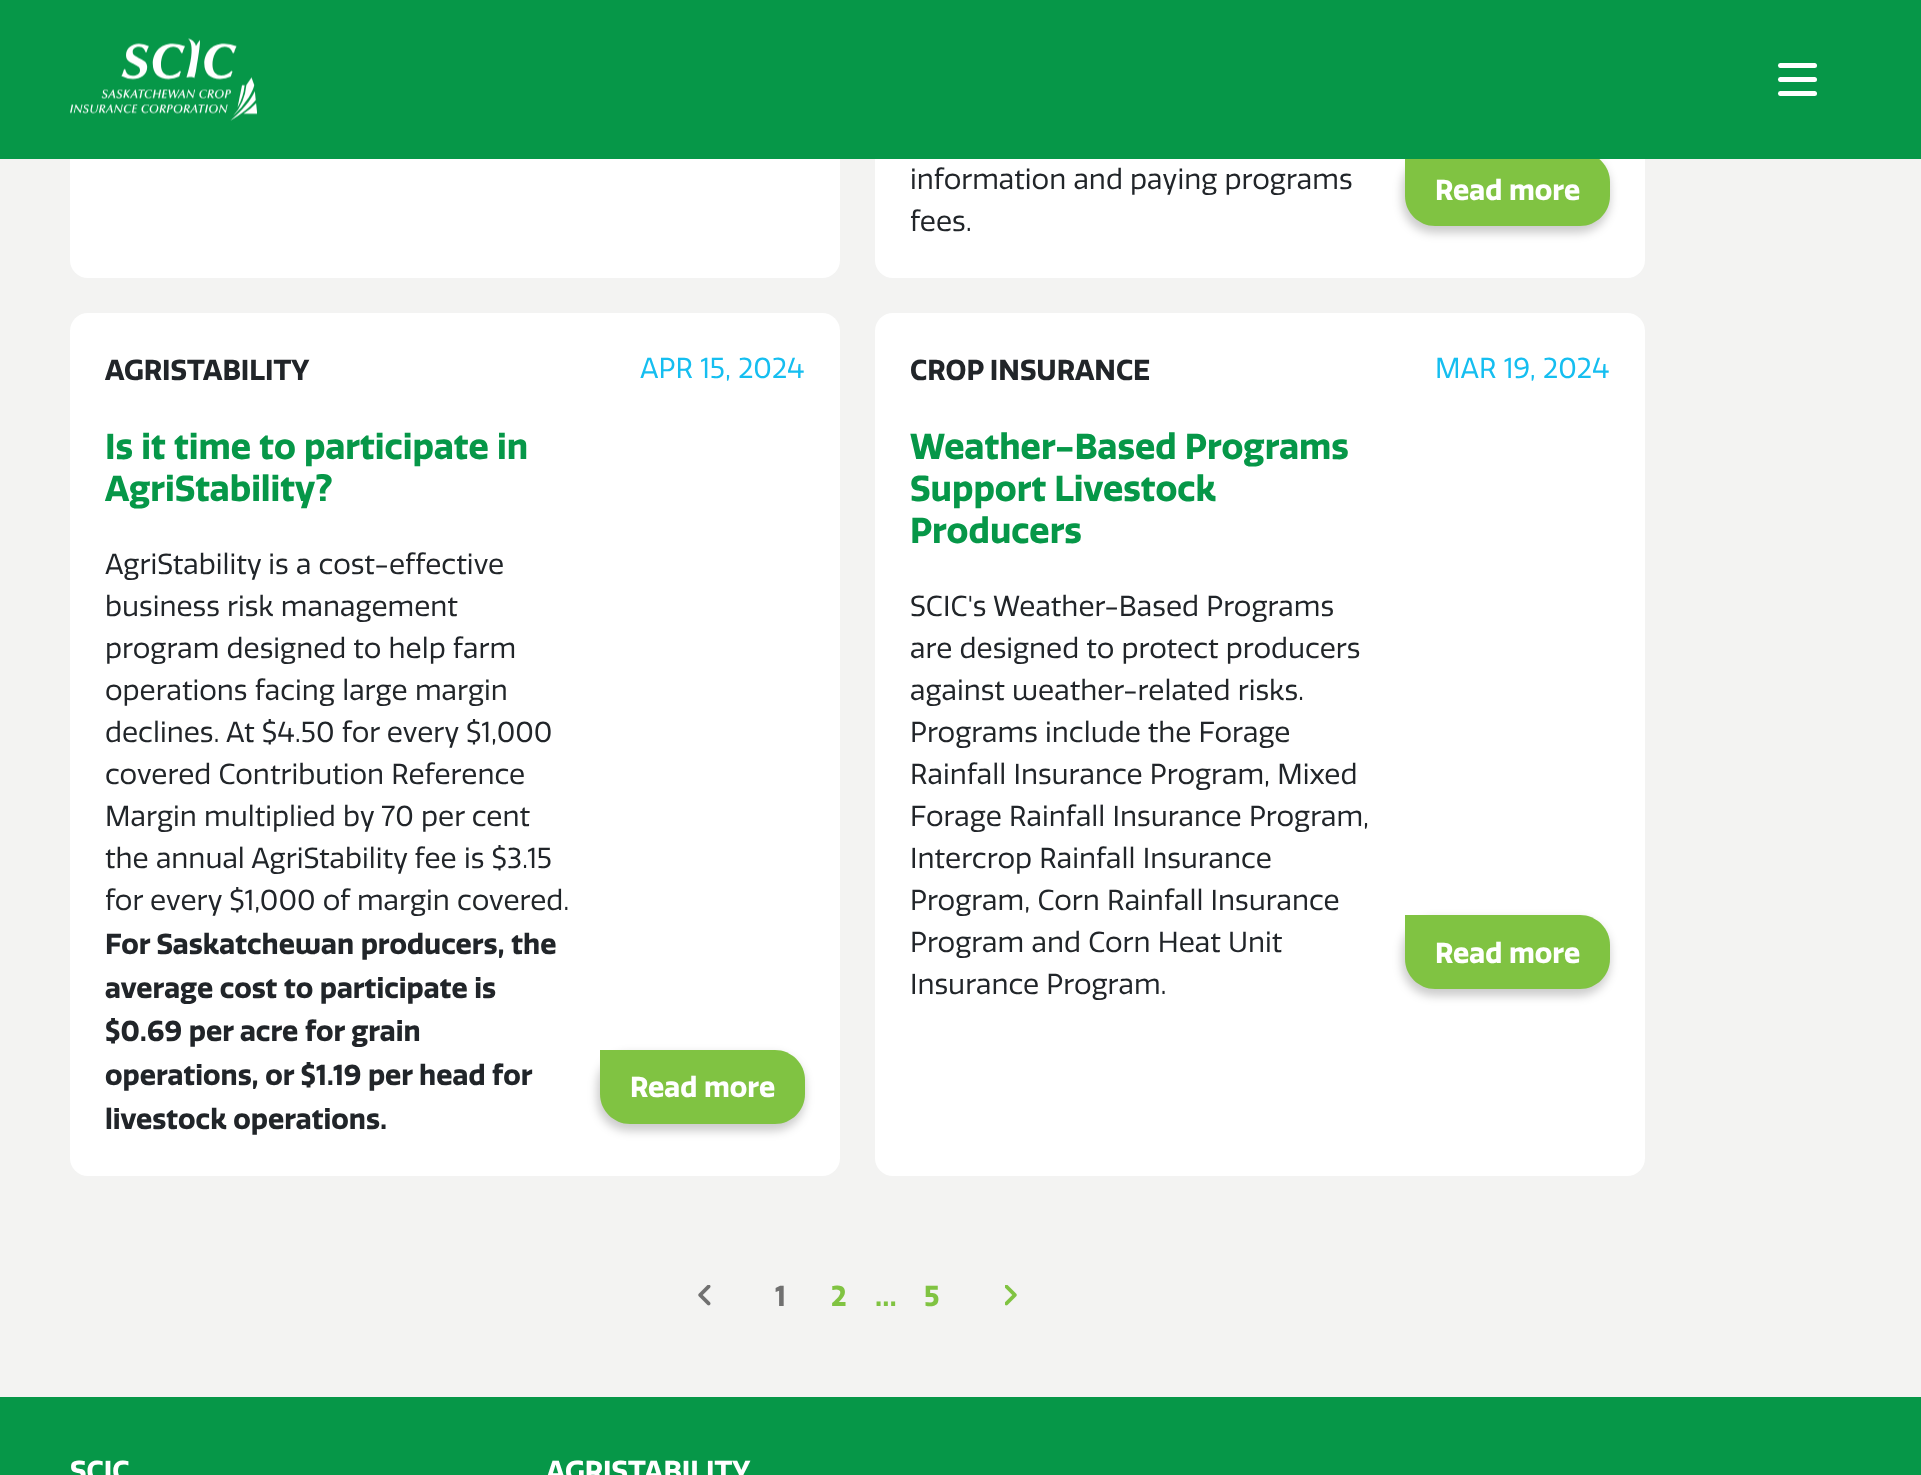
<svg xmlns="http://www.w3.org/2000/svg" width="1921" height="1475">
	<rect width="100%" height="100%" fill="#069748" />
	<rect x="0" y="159" width="1921" height="1238" fill="#F3F3F2" />
	<rect x="70" y="-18" width="770" height="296" rx="18" fill="#FFFFFF" />
	<rect x="875" y="-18" width="770" height="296" rx="18" fill="#FFFFFF" />
	<rect x="1402" y="156" width="208" height="77" rx="32" fill="#000000" fill-opacity="0.2" filter="blur(5px)" />
	<path d="M1405 152H1580C1596.5 152 1610 165.5 1610 182V196C1610 212.5 1596.5 226 1580 226H1435C1418.5 226 1405 212.5 1405 196Z" fill="#80C342" />
	<rect x="70" y="0" width="1575" height="159" fill="#069748" />
	<image x="70" y="38" width="187" height="83" href="assets/img1.png" />
	<rect x="1778" y="77" width="39" height="5" rx="2.5" fill="#FFFFFF" />
	<rect x="1778" y="63" width="39" height="5" rx="2.5" fill="#FFFFFF" />
	<rect x="1778" y="91" width="39" height="5" rx="2.5" fill="#FFFFFF" />
	<g font-family="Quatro" font-size="28" fill="#212529">
		<text x="910" y="189">information and paying programs</text>
		<text x="910" y="231">fees.</text>
	</g>
	<text x="1435" y="200" font-family="Quatro" font-size="28" font-weight="700" fill="#FFFFFF">Read more</text>
	<rect x="70" y="313" width="770" height="863" rx="18" fill="#FFFFFF" />
	<text x="105" y="380" font-family="Quatro" font-size="28" font-weight="700" fill="#212529">AGRISTABILITY</text>
	<text x="640" y="378" font-family="Quatro" font-size="28" fill="#15BEF0">APR 15, 2024</text>
	<g font-family="Quatro" font-size="35" font-weight="700" fill="#069748">
		<text x="105" y="459">Is it time to participate in</text>
		<text x="105" y="501">AgriStability?</text>
	</g>
	<g font-family="Quatro" font-size="28" fill="#212529">
		<text x="105" y="574">AgriStability is a cost-effective</text>
		<text x="105" y="616">business risk management</text>
		<text x="105" y="658">program designed to help farm</text>
		<text x="105" y="700">operations facing large margin</text>
		<text x="105" y="742">declines. At $4.50 for every $1,000</text>
		<text x="105" y="784">covered Contribution Reference</text>
		<text x="105" y="826">Margin multiplied by 70 per cent</text>
		<text x="105" y="868">the annual AgriStability fee is $3.15</text>
		<text x="105" y="910">for every $1,000 of margin covered.</text>
	</g>
	<g font-family="Quatro" font-size="28" font-weight="700" fill="#212529">
		<text x="105" y="954">For Saskatchewan producers, the</text>
		<text x="105" y="998">average cost to participate is</text>
		<text x="105" y="1041">$0.69 per acre for grain</text>
		<text x="105" y="1085">operations, or $1.19 per head for</text>
		<text x="105" y="1129">livestock operations.</text>
	</g>
	<rect x="597" y="1054" width="208" height="77" rx="32" fill="#000000" fill-opacity="0.2" filter="blur(5px)" />
	<path d="M600 1050H775C791.5 1050 805 1063.5 805 1080V1094C805 1110.5 791.5 1124 775 1124H630C613.5 1124 600 1110.5 600 1094Z" fill="#80C342" />
	<text x="630" y="1097" font-family="Quatro" font-size="28" font-weight="700" fill="#FFFFFF">Read more</text>
	<rect x="875" y="313" width="770" height="863" rx="18" fill="#FFFFFF" />
	<text x="910" y="380" font-family="Quatro" font-size="28" font-weight="700" fill="#212529">CROP INSURANCE</text>
	<text x="1435" y="378" font-family="Quatro" font-size="28" fill="#15BEF0">MAR 19, 2024</text>
	<g font-family="Quatro" font-size="35" font-weight="700" fill="#069748">
		<text x="910" y="459">Weather-Based Programs</text>
		<text x="910" y="501">Support Livestock</text>
		<text x="910" y="543">Producers</text>
	</g>
	<g font-family="Quatro" font-size="28" fill="#212529">
		<text x="910" y="616">SCIC's Weather-Based Programs</text>
		<text x="910" y="658">are designed to protect producers</text>
		<text x="910" y="700">against weather-related risks.</text>
		<text x="910" y="742">Programs include the Forage</text>
		<text x="910" y="784">Rainfall Insurance Program, Mixed</text>
		<text x="910" y="826">Forage Rainfall Insurance Program,</text>
		<text x="910" y="868">Intercrop Rainfall Insurance</text>
		<text x="910" y="910">Program, Corn Rainfall Insurance</text>
		<text x="910" y="952">Program and Corn Heat Unit</text>
		<text x="910" y="994">Insurance Program.</text>
	</g>
	<rect x="1402" y="919" width="208" height="77" rx="32" fill="#000000" fill-opacity="0.2" filter="blur(5px)" />
	<path d="M1405 915H1580C1596.5 915 1610 928.5 1610 945V959C1610 975.5 1596.5 989 1580 989H1435C1418.5 989 1405 975.5 1405 959Z" fill="#80C342" />
	<text x="1435" y="963" font-family="Quatro" font-size="28" font-weight="700" fill="#FFFFFF">Read more</text>
	<image x="698" y="1285" width="13" height="21" href="assets/img2.png" />
	<text x="775" y="1306" font-family="Quatro" font-size="28" font-weight="700" fill="#707070">1</text>
	<g font-family="Quatro" font-size="28" font-weight="700" fill="#80C342">
		<text x="831" y="1306">2</text>
		<text x="875" y="1306">…</text>
		<text x="924" y="1306">5</text>
	</g>
	<image x="1005" y="1285" width="12" height="21" href="assets/img3.png" />
	<g font-family="Quatro" font-size="28" font-weight="700" fill="#FFFFFF">
		<text x="70" y="1481">SCIC</text>
		<text x="546" y="1481">AGRISTABILITY</text>
	</g>
</svg>
